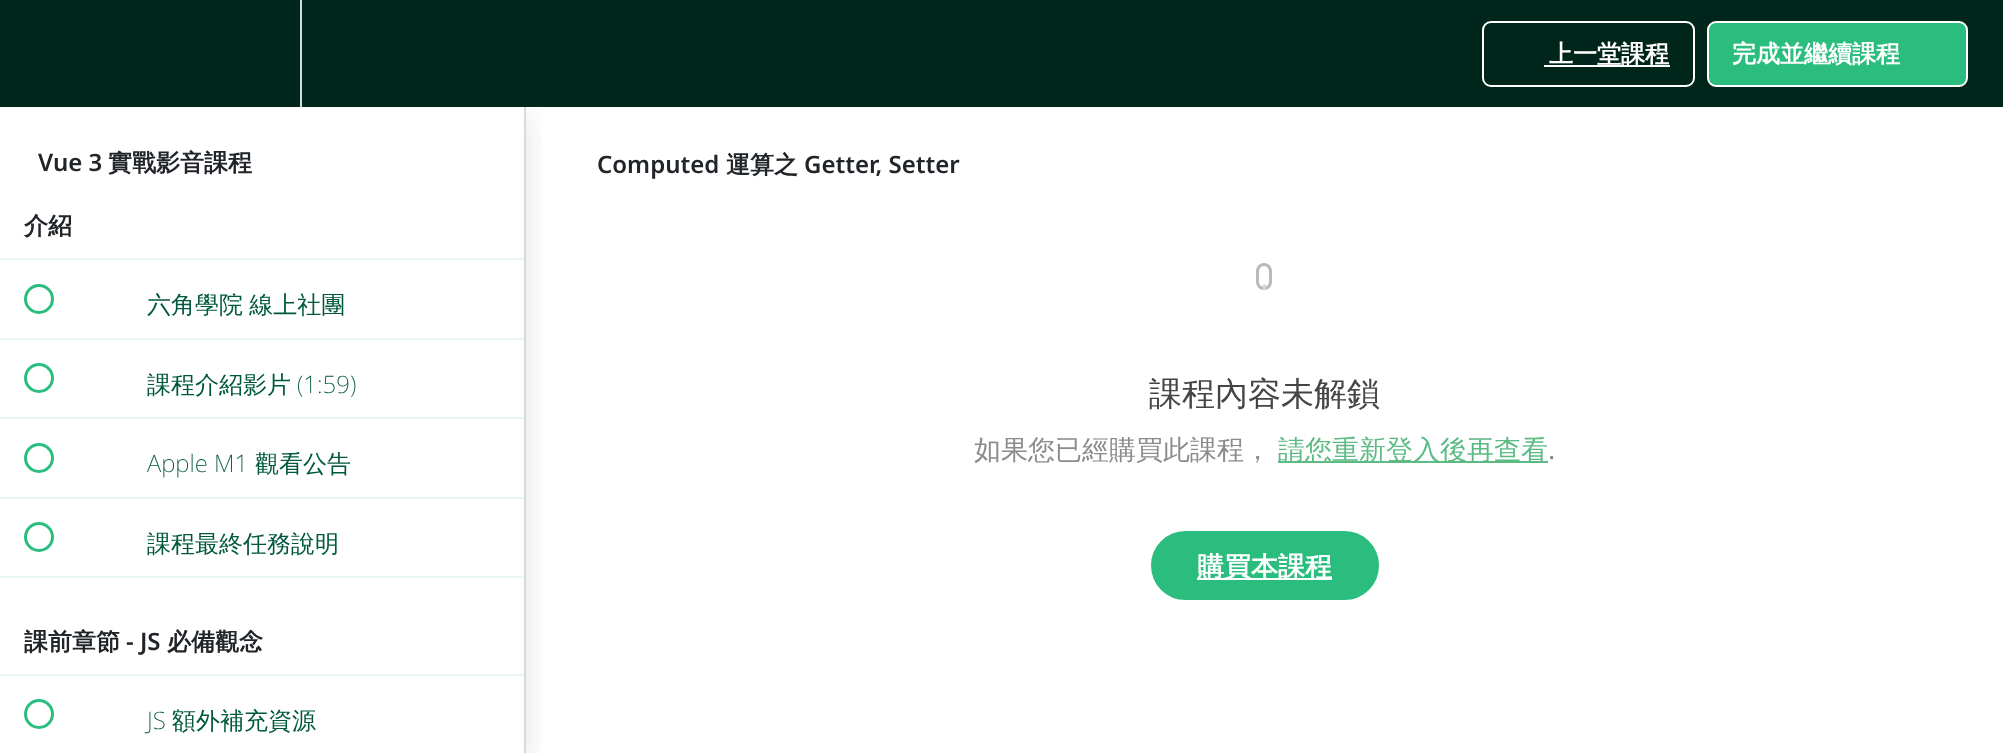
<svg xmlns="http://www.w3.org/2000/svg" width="2003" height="753">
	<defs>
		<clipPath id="clip1"><rect x="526" y="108" width="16" height="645" /></clipPath>
	</defs>
	<rect width="100%" height="100%" fill="#FFFFFF" />
	<g clip-path="url(#clip1)">
		<rect x="0" y="116" width="525" height="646" fill="#20272D" fill-opacity="0.15" filter="blur(15px)" />
	</g>
	<rect x="0" y="0" width="2003" height="107" fill="#00251A" />
	<rect x="300" y="0" width="2" height="107" fill="#D7DADB" />
	<rect x="1483" y="22" width="211" height="64" rx="8" fill="none" stroke="#FFFFFF" stroke-width="2" />
	<rect x="1544" y="65" width="126" height="2" fill="#FFFFFF" />
	<text x="1549" y="62" font-family="WenQuanYi Zen Hei" font-size="24" font-weight="700" fill="#FFFFFF">上一堂課程</text>
	<rect x="1708" y="22" width="259" height="64" rx="8" fill="#2BBD7E" stroke="#FFFFFF" stroke-width="2" />
	<text x="1732" y="62" font-family="WenQuanYi Zen Hei" font-size="24" font-weight="700" fill="#FFFFFF">完成並繼續課程</text>
	<rect x="524" y="107" width="2" height="646" fill="#D7DADB" />
	<text x="38" y="171" font-family="Noto Sans" font-size="24" font-weight="600" fill="#212529">Vue 3</text>
	<text x="108" y="171" font-family="WenQuanYi Zen Hei" font-size="24" font-weight="700" fill="#212529">實戰影音課程</text>
	<rect x="0" y="258" width="524" height="2" fill="#EAF8F2" />
	<text x="24" y="234" font-family="WenQuanYi Zen Hei" font-size="24" font-weight="700" fill="#212529">介紹</text>
	<rect x="0" y="338" width="524" height="2" fill="#EAF8F2" />
	<circle cx="39" cy="299" r="13.5" fill="none" stroke="#2BBD7E" stroke-width="3" />
	<text x="147" y="313" word-spacing="-1" font-family="WenQuanYi Zen Hei" font-size="24" font-weight="500" fill="#00583E">六角學院 線上社團</text>
	<rect x="0" y="417" width="524" height="2" fill="#EAF8F2" />
	<circle cx="39" cy="378" r="13.5" fill="none" stroke="#2BBD7E" stroke-width="3" />
	<text x="147" y="393" font-family="WenQuanYi Zen Hei" font-size="24" font-weight="500" fill="#00583E">課程介紹影片</text>
	<text x="297" y="393" font-family="Noto Sans" font-size="24" font-weight="200" fill="#00583E">(1:59)</text>
	<rect x="0" y="497" width="524" height="2" fill="#EAF8F2" />
	<circle cx="39" cy="458" r="13.5" fill="none" stroke="#2BBD7E" stroke-width="3" />
	<text x="147" y="472" font-family="Noto Sans" font-size="24" font-weight="200" fill="#00583E">Apple M1</text>
	<text x="255" y="472" font-family="WenQuanYi Zen Hei" font-size="24" font-weight="500" fill="#00583E">觀看公告</text>
	<rect x="0" y="576" width="524" height="2" fill="#EAF8F2" />
	<circle cx="39" cy="537" r="13.5" fill="none" stroke="#2BBD7E" stroke-width="3" />
	<text x="147" y="552" font-family="WenQuanYi Zen Hei" font-size="24" font-weight="500" fill="#00583E">課程最終任務說明</text>
	<rect x="0" y="674" width="524" height="2" fill="#EAF8F2" />
	<text x="24" y="650" font-family="WenQuanYi Zen Hei" font-size="24" font-weight="700" fill="#212529">課前章節</text>
	<text x="126" y="650" font-family="Noto Sans" font-size="24" font-weight="600" fill="#212529">- JS</text>
	<text x="167" y="650" font-family="WenQuanYi Zen Hei" font-size="24" font-weight="700" fill="#212529">必備觀念</text>
	<circle cx="39" cy="714" r="13.5" fill="none" stroke="#2BBD7E" stroke-width="3" />
	<text x="147" y="729" font-family="Noto Sans" font-size="24" font-weight="200" fill="#00583E">JS</text>
	<text x="172" y="729" font-family="WenQuanYi Zen Hei" font-size="24" font-weight="500" fill="#00583E">額外補充資源</text>
	<text x="597" y="173" font-family="Noto Sans" font-size="24" font-weight="600" fill="#212529">Computed</text>
	<text x="726" y="173" font-family="WenQuanYi Zen Hei" font-size="24" font-weight="700" fill="#212529">運算之</text>
	<text x="804" y="173" font-family="Noto Sans" font-size="24" font-weight="600" fill="#212529">Getter, Setter</text>
	<rect x="1257.5" y="264.5" width="13" height="24" rx="6.5" fill="none" stroke="#B5BABF" stroke-width="3" />
	<rect x="1263" y="284" width="3" height="6" rx="1.5" fill="#D3D7DC" />
	<text x="1149" y="405" font-family="WenQuanYi Zen Hei" font-size="33" font-weight="500" fill="#454545">課程內容未解鎖</text>
	<text x="974" y="459" font-family="WenQuanYi Zen Hei" font-size="27" font-weight="500" fill="#8B8B8B">如果您已經購買此課程，</text>
	<rect x="1278" y="461" width="270" height="2" fill="#5DBA83" />
	<text x="1278" y="459" font-family="WenQuanYi Zen Hei" font-size="27" font-weight="500" fill="#5DBA83">請您重新登入後再查看</text>
	<text x="1548" y="459" font-family="Noto Sans" font-size="27" fill="#8B8B8B">.</text>
	<rect x="1152" y="532" width="226" height="67" rx="33.5" fill="#2BBD7E" stroke="#2BBD7E" stroke-width="2" />
	<rect x="1197" y="578" width="135" height="2" fill="#FFFFFF" />
	<text x="1197" y="576" font-family="WenQuanYi Zen Hei" font-size="27" font-weight="700" fill="#FFFFFF">購買本課程</text>
</svg>
